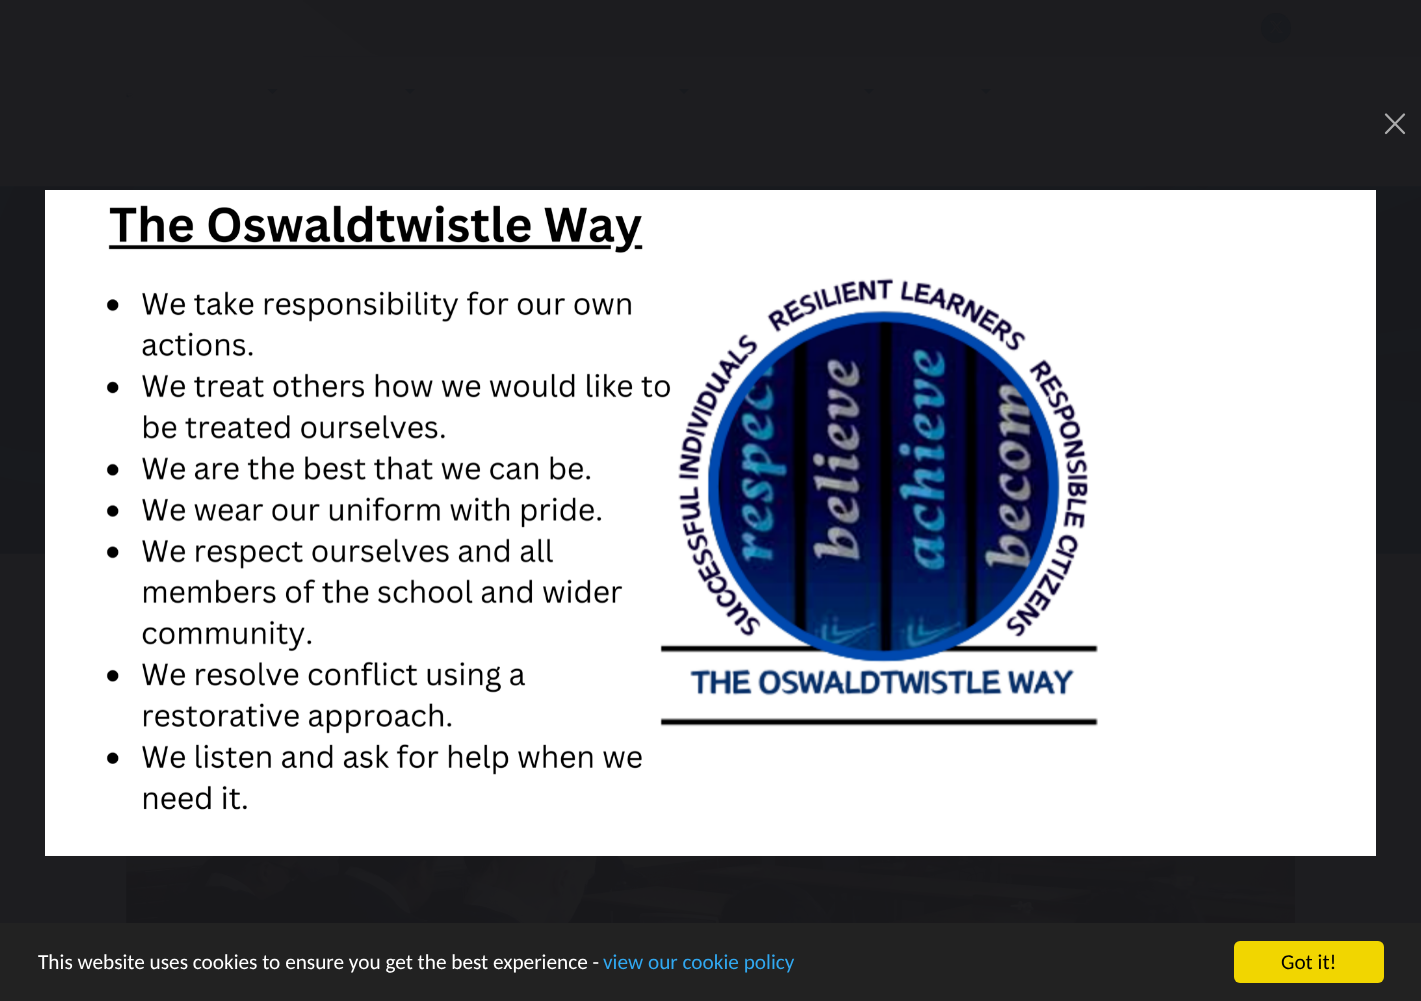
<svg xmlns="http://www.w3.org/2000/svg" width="1421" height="1001">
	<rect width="100%" height="100%" fill="#1D1D20" />
	<image x="303" y="0" width="1118" height="57" href="assets/img1.png" />
	<circle cx="1276" cy="28" r="15" fill="#181A1E" />
	<image x="1269" y="20" width="14" height="13" href="assets/img2.png" />
	<path d="M267.5 89H277.5L272.5 94Z" fill="#181A1E" />
	<path d="M405 89H415L410 94Z" fill="#181A1E" />
	<path d="M679 89H689L684 94Z" fill="#181A1E" />
	<path d="M864 89H874L869 94Z" fill="#181A1E" />
	<path d="M981 89H991L986 94Z" fill="#181A1E" />
	<image x="126" y="93" width="7" height="5" href="assets/img3.png" />
	<image x="0" y="186" width="1421" height="368" href="assets/img4.png" />
	<image x="126" y="855" width="1169" height="68" href="assets/img5.png" />
	<path d="M1404 133L1386 114.5M1404 114.5L1386 133" fill="none" stroke="#ABABAC" stroke-width="2.3" stroke-linecap="round" stroke-linejoin="round" />
	<image x="45" y="190" width="1331" height="666" href="assets/img6.png" />
	<rect x="0" y="923" width="1421" height="78" fill="#222222" />
	<text x="38" y="969" font-family="Carlito" font-size="21.25" fill="#FFFFFF">This website uses cookies to ensure you get the best experience -</text>
	<text x="603" y="969" font-family="Carlito" font-size="21.25" fill="#31A8F0">view our cookie policy</text>
	<rect x="1234" y="941" width="150" height="42" rx="6" fill="#F1D600" />
	<text x="1281" y="969" font-family="Carlito" font-size="21.25" fill="#000000">Got it!</text>
</svg>
